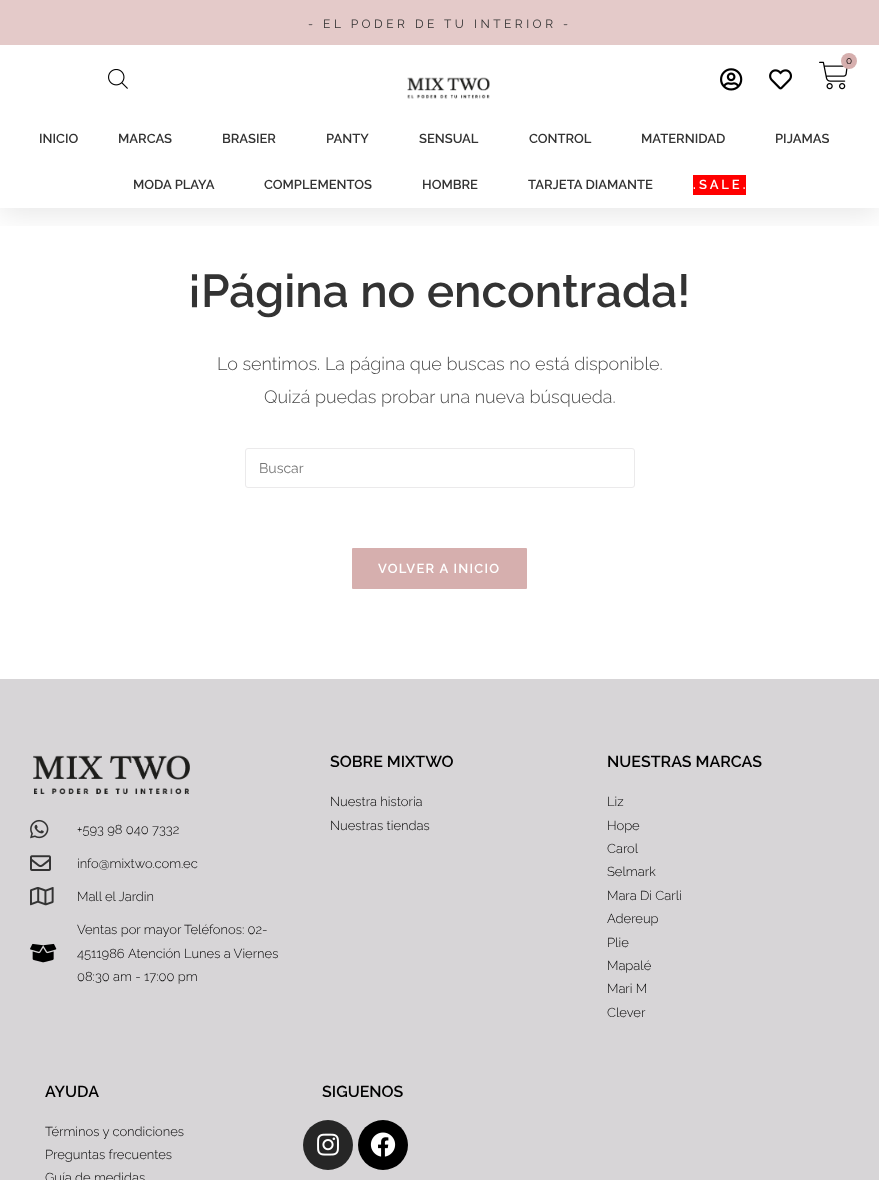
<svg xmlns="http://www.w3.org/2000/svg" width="879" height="1180">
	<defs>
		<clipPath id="clip1"><rect x="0" y="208" width="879" height="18" /></clipPath>
	</defs>
	<rect width="100%" height="100%" fill="#FFFFFF" />
	<g clip-path="url(#clip1)">
		<rect x="0" y="5" width="879" height="208" fill="#000000" fill-opacity="0.1" filter="blur(15px)" />
	</g>
	<rect x="0" y="0" width="879" height="45" fill="#E4CAC9" />
	<text x="308" y="28" font-family="Raleway" font-size="12" letter-spacing="3.5" fill="#333333">- EL PODER DE TU INTERIOR -</text>
	<image x="819" y="61" width="29" height="29" href="assets/img1.png" />
	<circle cx="849" cy="61" r="8" fill="#D6AFAE" />
	<text x="846" y="64" font-family="Raleway" font-size="10" fill="#000000">0</text>
	<image x="108" y="69" width="20" height="20" href="assets/img2.png" />
	<image x="407" y="77" width="83" height="22" href="assets/img3.png" />
	<image x="720" y="68" width="23" height="23" href="assets/img4.png" />
	<image x="769" y="69" width="23" height="21" href="assets/img5.png" />
	<g font-family="Raleway" font-size="13" font-weight="600" fill="#333333">
		<text x="39" y="143">INICIO</text>
		<text x="118" y="143">MARCAS</text>
		<text x="222" y="143">BRASIER</text>
		<text x="326" y="143">PANTY</text>
		<text x="419" y="143">SENSUAL</text>
		<text x="529" y="143">CONTROL</text>
		<text x="641" y="143">MATERNIDAD</text>
		<text x="775" y="143">PIJAMAS</text>
		<text x="133" y="189">MODA PLAYA</text>
		<text x="264" y="189">COMPLEMENTOS</text>
		<text x="422" y="189">HOMBRE</text>
		<text x="528" y="189">TARJETA DIAMANTE</text>
	</g>
	<rect x="693" y="175" width="53" height="20" fill="#FF0000" />
	<text x="693" y="189" font-family="Raleway" font-size="13" font-weight="600" fill="#FFFFFF">. S A L E .</text>
	<text x="188" y="307" font-family="Raleway" font-size="46" font-weight="600" fill="#333333">¡Página no encontrada!</text>
	<g font-family="Raleway" font-size="18" font-weight="300" fill="#4A4A4A">
		<text x="217" y="370">Lo sentimos. La página que buscas no está disponible.</text>
		<text x="264" y="403">Quizá puedas probar una nueva búsqueda.</text>
	</g>
	<rect x="245.5" y="448.5" width="389" height="39" rx="2.5" fill="none" stroke="#EBEAEB" />
	<text x="259" y="473" font-family="Raleway" font-size="14" fill="#757575">Buscar</text>
	<rect x="352" y="548" width="175" height="41" rx="1" fill="#D6AFAE" />
	<text x="378" y="573" font-family="Raleway" font-size="13" font-weight="600" letter-spacing="1.25" fill="#FFFFFF">VOLVER A INICIO</text>
	<rect x="0" y="679" width="879" height="501" fill="#D7D5D7" />
	<image x="33" y="755" width="157" height="40" href="assets/img6.png" />
	<image x="30" y="819" width="19" height="20" href="assets/img7.png" />
	<text x="77" y="834" font-family="Raleway" font-size="13" font-weight="300" fill="#000000">+593 98 040 7332</text>
	<image x="30" y="855" width="21" height="16" href="assets/img8.png" />
	<text x="77" y="868" font-family="Raleway" font-size="13" font-weight="300" fill="#000000">info@mixtwo.com.ec</text>
	<image x="30" y="887" width="24" height="19" href="assets/img9.png" />
	<text x="77" y="901" font-family="Raleway" font-size="13" font-weight="300" fill="#000000">Mall el Jardin</text>
	<image x="30" y="943" width="27" height="20" href="assets/img10.png" />
	<g font-family="Raleway" font-size="13" font-weight="300" fill="#000000">
		<text x="77" y="934">Ventas por mayor Teléfonos: 02-</text>
		<text x="77" y="958">4511986</text>
		<text x="128" y="958">Atención Lunes a Viernes</text>
		<text x="77" y="981">08:30 am - 17:00 pm</text>
	</g>
	<text x="330" y="767" font-family="Raleway" font-size="16" font-weight="600" fill="#000000">SOBRE MIXTWO</text>
	<g font-family="Raleway" font-size="13" font-weight="300" fill="#000000">
		<text x="330" y="806">Nuestra historia</text>
		<text x="330" y="830">Nuestras tiendas</text>
	</g>
	<text x="607" y="767" font-family="Raleway" font-size="16" font-weight="600" fill="#000000">NUESTRAS MARCAS</text>
	<g font-family="Raleway" font-size="13" font-weight="300" fill="#000000">
		<text x="607" y="806">Liz</text>
		<text x="607" y="830">Hope</text>
		<text x="607" y="853">Carol</text>
		<text x="607" y="876">Selmark</text>
		<text x="607" y="900">Mara Di Carli</text>
		<text x="607" y="923">Adereup</text>
		<text x="607" y="947">Plie</text>
		<text x="607" y="970">Mapalé</text>
		<text x="607" y="993">Mari M</text>
		<text x="607" y="1017">Clever</text>
	</g>
	<text x="45" y="1097" font-family="Raleway" font-size="16" font-weight="600" fill="#000000">AYUDA</text>
	<g font-family="Raleway" font-size="13" font-weight="300" fill="#000000">
		<text x="45" y="1136">Términos y condiciones</text>
		<text x="45" y="1159">Preguntas frecuentes</text>
		<text x="45" y="1182">Guía de medidas</text>
	</g>
	<text x="322" y="1097" font-family="Raleway" font-size="16" font-weight="600" fill="#000000">SIGUENOS</text>
	<circle cx="328" cy="1145" r="25" fill="#262626" />
	<image x="317" y="1133" width="22" height="23" href="assets/img11.png" />
	<circle cx="383" cy="1145" r="25" fill="#000000" />
	<image x="370" y="1132" width="26" height="25" href="assets/img12.png" />
</svg>
